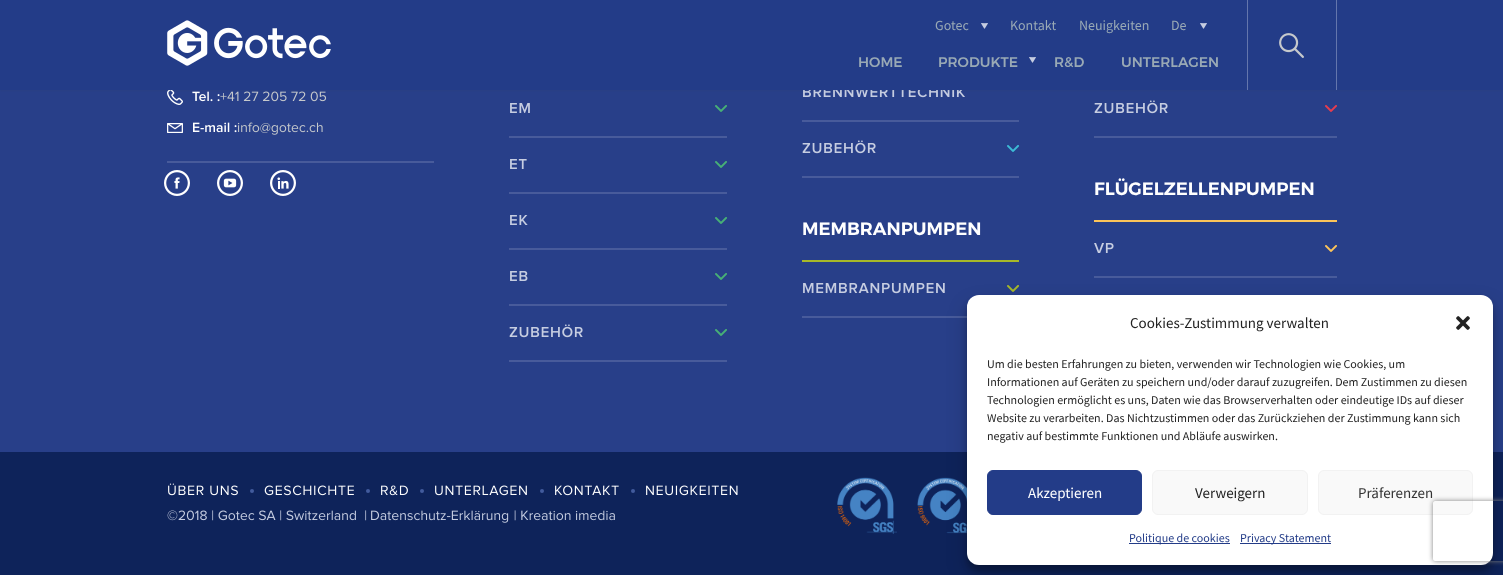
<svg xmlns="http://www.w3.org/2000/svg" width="1503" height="575">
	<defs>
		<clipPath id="clip1"><path d="M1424 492H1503V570H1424ZM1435 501H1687C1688 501 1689 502 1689 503V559C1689 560 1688 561 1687 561H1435C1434 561 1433 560 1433 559V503C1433 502 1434 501 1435 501Z" clip-rule="evenodd" /></clipPath>
	</defs>
	<rect width="100%" height="100%" fill="#0E235A" />
	<rect x="0" y="90" width="1503" height="362" fill="#283F89" />
	<image x="167" y="90" width="16" height="15" href="assets/img4.png" />
	<image x="192" y="91" width="28" height="11" href="assets/img5.png" />
	<image x="220" y="91" width="107" height="11" href="assets/img6.png" />
	<image x="803" y="90" width="162" height="8" href="assets/img22.png" />
	<rect x="0" y="40" width="1503" height="50" fill="#384554" fill-opacity="0.2" filter="blur(1px)" />
	<rect x="0" y="0" width="1503" height="90" fill="#233C88" />
	<text x="935" y="30" font-family="Source Sans Pro" font-size="14" fill="#99A9B5">Gotec</text>
	<image x="981" y="23" width="7" height="6" href="assets/img1.png" />
	<g font-family="Source Sans Pro" font-size="14" fill="#99A9B5">
		<text x="1010" y="30">Kontakt</text>
		<text x="1079" y="30">Neuigkeiten</text>
		<text x="1171" y="30">De</text>
	</g>
	<image x="1200" y="23" width="7" height="6" href="assets/img1.png" />
	<image x="167" y="20" width="164" height="46" href="assets/img2.png" />
	<g font-family="Montserrat" font-size="14" font-weight="500" fill="#99A9B5">
		<text x="858" y="67">HOME</text>
		<text x="938" y="67">PRODUKTE</text>
	</g>
	<image x="1029" y="57" width="7" height="6" href="assets/img1.png" />
	<g font-family="Montserrat" font-size="14" font-weight="500" fill="#99A9B5">
		<text x="1054" y="67">R&amp;D</text>
		<text x="1121" y="67">UNTERLAGEN</text>
	</g>
	<rect x="1247" y="0" width="1" height="90" fill="#6476AC" />
	<image x="1279" y="33" width="25" height="25" href="assets/img3.png" />
	<rect x="1336" y="0" width="1" height="90" fill="#6476AC" />
	<rect x="167" y="161" width="267" height="2" fill="#485B9B" />
	<image x="167" y="123" width="16" height="10" href="assets/img7.png" />
	<image x="193" y="122" width="44" height="11" href="assets/img8.png" />
	<image x="237" y="122" width="86" height="13" href="assets/img9.png" />
	<image x="164" y="170" width="26" height="26" href="assets/img10.png" />
	<image x="217" y="170" width="26" height="26" href="assets/img11.png" />
	<image x="270" y="170" width="26" height="26" href="assets/img12.png" />
	<rect x="509" y="136" width="218" height="2" fill="#485B9B" />
	<image x="510" y="103" width="20" height="10" href="assets/img13.png" />
	<image x="715" y="105" width="12" height="7" href="assets/img14.png" />
	<rect x="509" y="192" width="218" height="2" fill="#485B9B" />
	<image x="510" y="159" width="17" height="10" href="assets/img15.png" />
	<image x="715" y="161" width="12" height="7" href="assets/img14.png" />
	<rect x="509" y="248" width="218" height="2" fill="#485B9B" />
	<image x="510" y="215" width="18" height="10" href="assets/img16.png" />
	<image x="715" y="217" width="12" height="7" href="assets/img14.png" />
	<rect x="509" y="304" width="218" height="2" fill="#485B9B" />
	<image x="510" y="271" width="18" height="10" href="assets/img17.png" />
	<image x="715" y="273" width="12" height="7" href="assets/img14.png" />
	<rect x="509" y="360" width="218" height="2" fill="#485B9B" />
	<image x="509" y="324" width="74" height="14" href="assets/img18.png" />
	<image x="715" y="329" width="12" height="7" href="assets/img14.png" />
	<rect x="1094" y="136" width="243" height="2" fill="#485B9B" />
	<image x="1094" y="100" width="74" height="14" href="assets/img18.png" />
	<image x="1325" y="105" width="12" height="7" href="assets/img19.png" />
	<rect x="1094" y="220" width="243" height="2" fill="#FCC459" />
	<text x="1094" y="195" font-family="Montserrat" font-size="18" font-weight="600" fill="#FFFFFF">FLÜGELZELLENPUMPEN</text>
	<rect x="1094" y="276" width="243" height="2" fill="#485B9B" />
	<image x="1094" y="243" width="20" height="10" href="assets/img20.png" />
	<image x="1325" y="245" width="12" height="7" href="assets/img21.png" />
	<rect x="802" y="120" width="217" height="2" fill="#485B9B" />
	<rect x="802" y="176" width="217" height="2" fill="#485B9B" />
	<image x="802" y="140" width="74" height="14" href="assets/img18.png" />
	<image x="1007" y="145" width="12" height="7" href="assets/img23.png" />
	<rect x="802" y="260" width="217" height="2" fill="#A7B828" />
	<text x="802" y="235" font-family="Montserrat" font-size="18" font-weight="600" fill="#FFFFFF">MEMBRANPUMPEN</text>
	<rect x="802" y="316" width="165" height="2" fill="#485B9B" />
	<image x="803" y="283" width="142" height="11" href="assets/img24.png" />
	<image x="1007" y="285" width="12" height="7" href="assets/img25.png" />
	<image x="168" y="483" width="70" height="13" href="assets/img26.png" />
	<circle cx="252" cy="491" r="2" fill="#425B9D" />
	<image x="264" y="485" width="90" height="11" href="assets/img27.png" />
	<circle cx="368" cy="491" r="2" fill="#425B9D" />
	<image x="381" y="485" width="27" height="11" href="assets/img28.png" />
	<circle cx="422" cy="491" r="2" fill="#425B9D" />
	<image x="435" y="485" width="92" height="11" href="assets/img29.png" />
	<circle cx="542" cy="491" r="2" fill="#425B9D" />
	<image x="555" y="485" width="64" height="11" href="assets/img30.png" />
	<circle cx="633" cy="491" r="2" fill="#425B9D" />
	<image x="646" y="485" width="92" height="11" href="assets/img31.png" />
	<image x="167" y="510" width="200" height="11" href="assets/img32.png" />
	<image x="371" y="510" width="138" height="13" href="assets/img33.png" />
	<image x="514" y="510" width="57" height="11" href="assets/img34.png" />
	<image x="575" y="510" width="40" height="11" href="assets/img35.png" />
	<image x="837" y="477" width="60" height="57" href="assets/img36.png" />
	<image x="917" y="477" width="50" height="57" href="assets/img37.png" />
	<rect x="967" y="301" width="526" height="270" rx="12" fill="#000000" fill-opacity="0.23" filter="blur(3px)" />
	<rect x="967" y="305" width="526" height="270" rx="12" fill="#000000" fill-opacity="0.19" filter="blur(10px)" />
	<rect x="967" y="295" width="526" height="270" rx="12" fill="#FFFFFF" />
	<text x="1130" y="328" font-family="Source Sans Pro" font-size="15" fill="#222222">Cookies-Zustimmung verwalten</text>
	<image x="1456" y="316" width="14" height="14" href="assets/img38.png" />
	<g font-family="Source Sans Pro" font-size="12" fill="#222222">
		<text x="987" y="368">Um die besten Erfahrungen zu bieten, verwenden wir Technologien wie Cookies, um</text>
		<text x="987" y="386">Informationen auf Geräten zu speichern und/oder darauf zuzugreifen. Dem Zustimmen zu diesen</text>
		<text x="987" y="404">Technologien ermöglicht es uns, Daten wie das Browserverhalten oder eindeutige IDs auf dieser</text>
		<text x="987" y="422">Website zu verarbeiten. Das Nichtzustimmen oder das Zurückziehen der Zustimmung kann sich</text>
		<text x="987" y="440">negativ auf bestimmte Funktionen und Abläufe auswirken.</text>
	</g>
	<rect x="987.5" y="470.5" width="154" height="44" rx="5.5" fill="#233C88" stroke="#233C88" />
	<text x="1028" y="498" font-family="Source Sans Pro" font-size="15" fill="#FFFFFF">Akzeptieren</text>
	<rect x="1152.5" y="470.5" width="155" height="44" rx="5.5" fill="#F9F9F9" stroke="#F2F2F2" />
	<text x="1195" y="498" font-family="Source Sans Pro" font-size="15" fill="#222222">Verweigern</text>
	<rect x="1318.5" y="470.5" width="154" height="44" rx="5.5" fill="#F9F9F9" stroke="#F2F2F2" />
	<text x="1358" y="498" font-family="Source Sans Pro" font-size="15" fill="#333333">Präferenzen</text>
	<rect x="1129" y="543" width="101" height="1" fill="#233C88" />
	<text x="1129" y="542" font-family="Source Sans Pro" font-size="12" fill="#233C88">Politique de cookies</text>
	<rect x="1240" y="543" width="91" height="1" fill="#233C88" />
	<text x="1240" y="542" font-family="Source Sans Pro" font-size="12" fill="#233C88">Privacy Statement</text>
	<g clip-path="url(#clip1)">
		<rect x="1433" y="501" width="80" height="60" rx="2" fill="#808080" filter="blur(2.5px)" />
	</g>
</svg>
